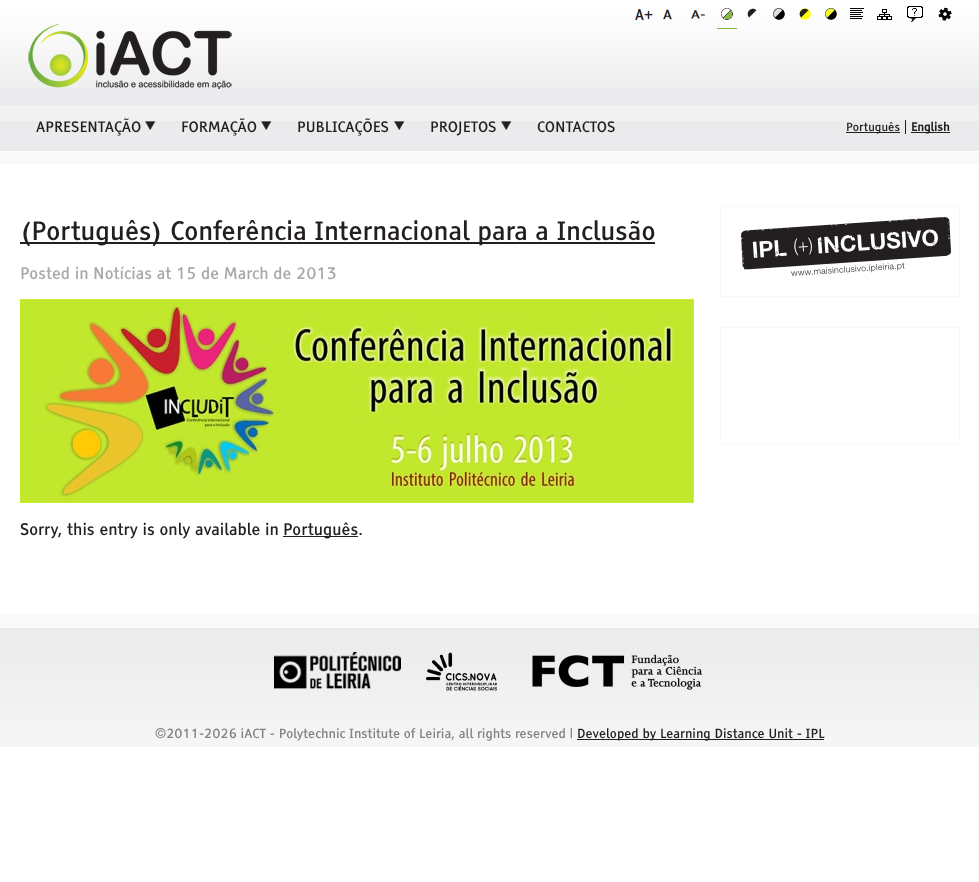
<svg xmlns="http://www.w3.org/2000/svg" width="979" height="882">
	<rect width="100%" height="100%" fill="#FFFFFF" />
	<rect x="0" y="88" width="979" height="63" fill="#EBEBED" />
	<image x="0" y="0" width="979" height="88" href="assets/img1.png" />
	<image x="635" y="9" width="18" height="11" href="assets/img2.png" />
	<image x="663" y="9" width="9" height="11" href="assets/img3.png" />
	<image x="691" y="10" width="14" height="9" href="assets/img4.png" />
	<rect x="717" y="28" width="20" height="1" fill="#85BA3F" />
	<image x="721" y="8" width="12" height="12" href="assets/img5.png" />
	<image x="747" y="8" width="10" height="10" href="assets/img6.png" />
	<image x="773" y="8" width="12" height="12" href="assets/img7.png" />
	<image x="799" y="8" width="12" height="12" href="assets/img8.png" />
	<image x="825" y="8" width="12" height="12" href="assets/img9.png" />
	<image x="850" y="8" width="14" height="11" href="assets/img10.png" />
	<image x="877" y="9" width="15" height="11" href="assets/img11.png" />
	<image x="907" y="6" width="16" height="16" href="assets/img12.png" />
	<image x="938" y="7" width="14" height="14" href="assets/img13.png" />
	<image x="28" y="24" width="204" height="65" href="assets/img14.png" />
	<rect x="0" y="105" width="979" height="16" fill="#F1F1F1" />
	<text x="36" y="132" font-family="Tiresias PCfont" font-size="14.5" fill="#231F20">APRESENTAÇÃO</text>
	<image x="145" y="121" width="11" height="9" href="assets/img15.png" />
	<text x="181" y="132" font-family="Tiresias PCfont" font-size="14.5" fill="#231F20">FORMAÇÃO</text>
	<image x="261" y="121" width="11" height="9" href="assets/img15.png" />
	<text x="297" y="132" font-family="Tiresias PCfont" font-size="14.5" fill="#231F20">PUBLICAÇÕES</text>
	<image x="394" y="121" width="11" height="9" href="assets/img15.png" />
	<text x="430" y="132" font-family="Tiresias PCfont" font-size="14.5" fill="#231F20">PROJETOS</text>
	<image x="501" y="121" width="11" height="9" href="assets/img15.png" />
	<text x="537" y="132" font-family="Tiresias PCfont" font-size="14.5" fill="#231F20">CONTACTOS</text>
	<rect x="846" y="132" width="54" height="1" fill="#231F20" />
	<text x="846" y="131" font-family="Tiresias PCfont" font-size="11.5" fill="#231F20">Português</text>
	<rect x="911" y="132" width="39" height="1" fill="#231F20" />
	<text x="911" y="131" font-family="Tiresias PCfont" font-size="11.5" font-weight="700" fill="#231F20">English</text>
	<rect x="905" y="120" width="1" height="14" fill="#231F20" />
	<rect x="0" y="152" width="979" height="12" fill="#F9F9F9" />
	<rect x="20" y="242" width="635" height="2" fill="#231F20" />
	<text x="20" y="240" font-family="Tiresias PCfont" font-size="25.6" fill="#231F20">(Português) Conferência Internacional para a Inclusão</text>
	<text x="20" y="279" font-family="Tiresias PCfont" font-size="16" fill="#A7A9AC">Posted in Notícias at 15 de March de 2013</text>
	<image x="20" y="299" width="674" height="204" href="assets/img16.png" />
	<text x="20" y="535" font-family="Tiresias PCfont" font-size="16" fill="#231F20">Sorry, this entry is only available in</text>
	<rect x="283" y="536" width="75" height="1" fill="#231F20" />
	<text x="283" y="535" font-family="Tiresias PCfont" font-size="16" fill="#231F20">Português.</text>
	<rect x="720" y="206" width="240" height="91" fill="#F8F8F8" />
	<rect x="721" y="207" width="238" height="89" fill="#FFFFFF" />
	<image x="741" y="217" width="210" height="59" href="assets/img17.png" />
	<rect x="720" y="327" width="240" height="118" fill="#F8F8F8" />
	<rect x="721" y="328" width="238" height="116" fill="#FFFFFF" />
	<rect x="0" y="614" width="979" height="13" fill="#F9F9F9" />
	<image x="0" y="628" width="979" height="119" href="assets/img18.png" />
	<image x="274" y="652" width="127" height="37" href="assets/img19.png" />
	<image x="426" y="652" width="71" height="39" href="assets/img20.png" />
	<image x="532" y="654" width="171" height="36" href="assets/img21.png" />
	<text x="155" y="738" font-family="Tiresias PCfont" font-size="12.8" fill="#828384">©2011-2026 iACT - Polytechnic Institute of Leiria, all rights reserved |</text>
	<rect x="577" y="739" width="247" height="1" fill="#231F20" />
	<text x="577" y="738" font-family="Tiresias PCfont" font-size="12.8" fill="#231F20">Developed by Learning Distance Unit - IPL</text>
</svg>
